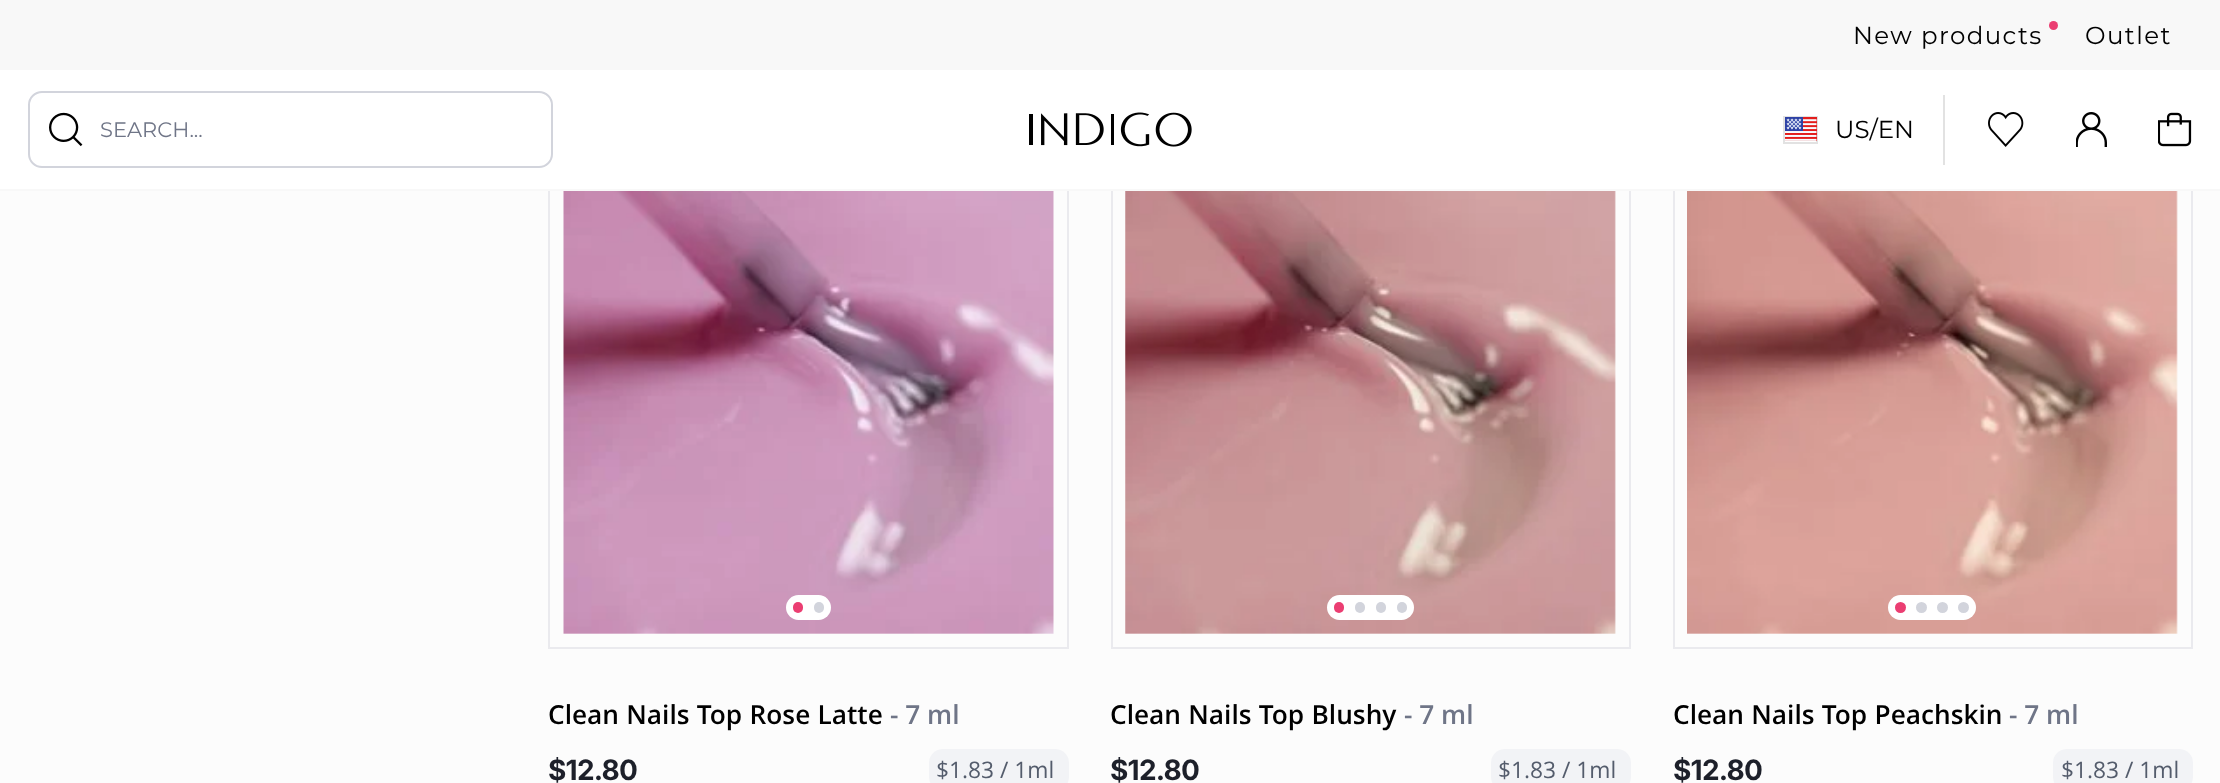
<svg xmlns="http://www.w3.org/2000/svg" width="2220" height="783">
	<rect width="100%" height="100%" fill="#FCFCFC" />
	<rect x="0" y="0" width="2220" height="70" fill="#F8F8F8" />
	<text x="1853" y="44" font-family="Montserrat" font-size="24.5" letter-spacing="1.4" fill="#000000">New products</text>
	<circle cx="2053.5" cy="25.5" r="4.5" fill="#EB3E72" />
	<text x="2085" y="44" font-family="Montserrat" font-size="24.5" letter-spacing="1.4" fill="#000000">Outlet</text>
	<rect x="549" y="129" width="519" height="519" fill="none" stroke="#EAEAEE" stroke-width="2" />
	<rect x="1112" y="129" width="518" height="519" fill="none" stroke="#EAEAEE" stroke-width="2" />
	<rect x="1674" y="129" width="518" height="519" fill="none" stroke="#EAEAEE" stroke-width="2" />
	<rect x="0" y="70" width="2220" height="119" fill="#FFFFFF" />
	<rect x="0" y="189" width="2220" height="2" fill="#F8F8F8" />
	<rect x="29" y="92" width="523" height="75" rx="13" fill="none" stroke="#D2D4DC" stroke-width="2" />
	<image x="49" y="112" width="34" height="35" href="assets/img1.png" />
	<text x="100" y="137" font-family="Montserrat" font-size="21" fill="#6F7587">SEARCH...</text>
	<image x="1029" y="112" width="163" height="35" href="assets/img2.png" />
	<rect x="1943" y="95" width="2" height="70" fill="#E2E2E2" />
	<rect x="1784" y="117" width="33" height="26" fill="none" stroke="#E2E2E2" stroke-width="2" />
	<image x="1785" y="117" width="32" height="24" href="assets/img3.png" />
	<text x="1835" y="138" font-family="Montserrat" font-size="24.5" fill="#000000">US/EN</text>
	<image x="1988" y="112" width="36" height="35" href="assets/img4.png" />
	<image x="2076" y="112" width="31" height="35" href="assets/img5.png" />
	<image x="2158" y="112" width="34" height="35" href="assets/img6.png" />
	<image x="563" y="191" width="491" height="443" href="assets/img7.png" />
	<rect x="786" y="595" width="45" height="25" rx="12.5" fill="#FFFFFF" />
	<rect x="793" y="602" width="10" height="11" rx="5" fill="#EB3E72" />
	<rect x="814" y="602" width="10" height="11" rx="5" fill="#D2D4DC" />
	<text x="548" y="724" word-spacing="0.5" font-family="Open Sans" font-size="26.25" font-weight="600" fill="#000000">Clean Nails Top Rose Latte</text>
	<text x="890" y="724" font-family="Open Sans" font-size="26.25" font-weight="600" fill="#6F7587">- 7 ml</text>
	<text x="548" y="780" font-family="Inter" font-size="28" font-weight="700" letter-spacing="-0.75" fill="#1D202A">$12.80</text>
	<rect x="929" y="749" width="140" height="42" rx="14" fill="#F2F3F6" />
	<text x="936" y="778" font-family="Open Sans" font-size="22.75" fill="#545C6C">$1.83 / 1ml</text>
	<image x="1125" y="191" width="491" height="443" href="assets/img8.png" />
	<rect x="1327" y="595" width="87" height="25" rx="12.5" fill="#FFFFFF" />
	<rect x="1334" y="602" width="10" height="11" rx="5" fill="#EB3E72" />
	<rect x="1355" y="602" width="10" height="11" rx="5" fill="#D2D4DC" />
	<rect x="1376" y="602" width="10" height="11" rx="5" fill="#D2D4DC" />
	<rect x="1397" y="602" width="10" height="11" rx="5" fill="#D2D4DC" />
	<text x="1110" y="724" word-spacing="0.5" font-family="Open Sans" font-size="26.25" font-weight="600" fill="#000000">Clean Nails Top Blushy</text>
	<text x="1404" y="724" font-family="Open Sans" font-size="26.25" font-weight="600" fill="#6F7587">- 7 ml</text>
	<text x="1110" y="780" font-family="Inter" font-size="28" font-weight="700" letter-spacing="-0.75" fill="#1D202A">$12.80</text>
	<rect x="1491" y="749" width="140" height="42" rx="14" fill="#F2F3F6" />
	<text x="1498" y="778" font-family="Open Sans" font-size="22.75" fill="#545C6C">$1.83 / 1ml</text>
	<image x="1687" y="191" width="491" height="443" href="assets/img9.png" />
	<rect x="1888" y="595" width="88" height="25" rx="12.5" fill="#FFFFFF" />
	<circle cx="1900.5" cy="607.5" r="5.5" fill="#EB3E72" />
	<circle cx="1921.5" cy="607.5" r="5.5" fill="#D2D4DC" />
	<circle cx="1942.5" cy="607.5" r="5.5" fill="#D2D4DC" />
	<circle cx="1963.5" cy="607.5" r="5.5" fill="#D2D4DC" />
	<text x="1673" y="724" word-spacing="0.5" font-family="Open Sans" font-size="26.25" font-weight="600" fill="#000000">Clean Nails Top Peachskin</text>
	<text x="2009" y="724" font-family="Open Sans" font-size="26.25" font-weight="600" fill="#6F7587">- 7 ml</text>
	<text x="1673" y="780" font-family="Inter" font-size="28" font-weight="700" letter-spacing="-0.75" fill="#1D202A">$12.80</text>
	<rect x="2053" y="749" width="140" height="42" rx="14" fill="#F2F3F6" />
	<text x="2061" y="778" font-family="Open Sans" font-size="22.75" fill="#545C6C">$1.83 / 1ml</text>
</svg>
